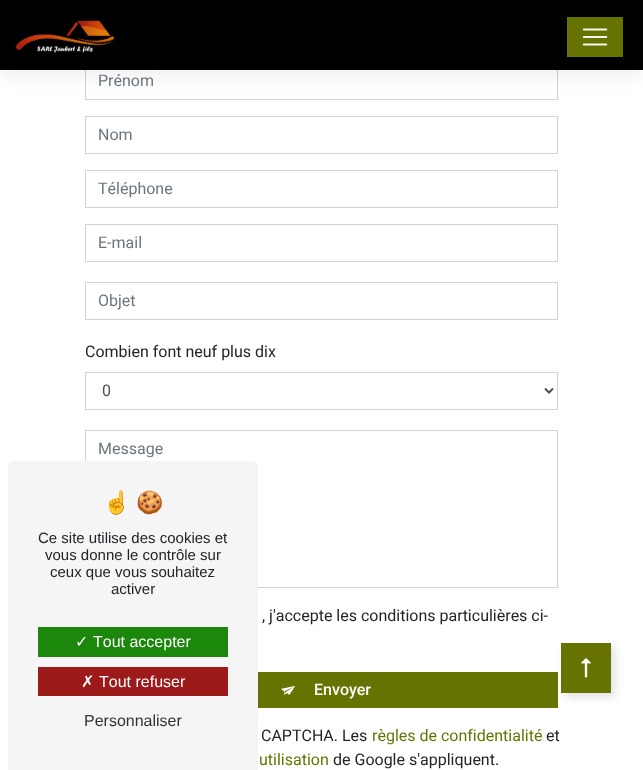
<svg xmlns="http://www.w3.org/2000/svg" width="643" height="770">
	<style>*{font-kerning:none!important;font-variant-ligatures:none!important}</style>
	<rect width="100%" height="100%" fill="#FFFFFF" />
	<rect x="85.5" y="62.5" width="472" height="37" fill="none" stroke="#CED4DA" />
	<rect x="0" y="5" width="643" height="70" fill="#000000" fill-opacity="0.07" filter="blur(10px)" />
	<rect x="0" y="0" width="643" height="70" fill="#000000" />
	<image x="15" y="20" width="100" height="33" href="assets/img1.png" />
	<rect x="567" y="17" width="56" height="40" fill="#667300" />
	<image x="582" y="28" width="26" height="18" href="assets/img2.png" />
	<text x="98" y="86" font-family="Roboto" font-size="16" fill="#6C757D">Prénom</text>
	<rect x="85.5" y="116.5" width="472" height="37" fill="none" stroke="#CED4DA" />
	<text x="98" y="140" font-family="Roboto" font-size="16" fill="#6C757D">Nom</text>
	<rect x="85.5" y="170.5" width="472" height="37" fill="none" stroke="#CED4DA" />
	<text x="98" y="194" font-family="Roboto" font-size="16" fill="#6C757D">Téléphone</text>
	<rect x="85.5" y="224.5" width="472" height="37" fill="none" stroke="#CED4DA" />
	<text x="98" y="248" font-family="Roboto" font-size="16" fill="#6C757D">E-mail</text>
	<rect x="85.5" y="282.5" width="472" height="37" fill="none" stroke="#CED4DA" />
	<text x="98" y="306" font-family="Roboto" font-size="16" fill="#6C757D">Objet</text>
	<text x="85" y="357" font-family="Roboto" font-size="16" fill="#212529">Combien font neuf plus dix</text>
	<rect x="85.5" y="372.5" width="472" height="37" fill="none" stroke="#CED4DA" />
	<path d="M545 388.5L549 392.5L553 388.5" fill="none" stroke="#495057" stroke-width="2" />
	<text x="102" y="396" font-family="Roboto" font-size="16" fill="#495057">0</text>
	<rect x="85.5" y="430.5" width="472" height="157" fill="none" stroke="#CED4DA" />
	<text x="98" y="454" font-family="Roboto" font-size="16" fill="#6C757D">Message</text>
	<text x="262" y="621" font-family="Roboto" font-size="16" fill="#212529">, j'accepte les conditions particulières ci-</text>
	<rect x="258" y="672" width="300" height="36" fill="#667300" />
	<image x="281" y="686" width="14" height="9" href="assets/img3.png" />
	<text x="314" y="695" font-family="Roboto" font-size="16" font-weight="500" fill="#FFFFFF">Envoyer</text>
	<text x="261" y="741" font-family="Roboto" font-size="16" fill="#212529">CAPTCHA. Les</text>
	<text x="372" y="741" font-family="Roboto" font-size="16" fill="#667300">règles de confidentialité</text>
	<text x="546" y="741" font-family="Roboto" font-size="16" fill="#212529">et</text>
	<text x="259" y="765" font-family="Roboto" font-size="16" fill="#667300">utilisation</text>
	<text x="333" y="765" font-family="Roboto" font-size="16" fill="#212529">de Google s'appliquent.</text>
	<rect x="565" y="647" width="50" height="50" fill="#000000" fill-opacity="0.12" filter="blur(5px)" />
	<rect x="561" y="643" width="50" height="50" fill="#667300" />
	<image x="581" y="658" width="10" height="20" href="assets/img4.png" />
	<path d="M13 461H253C256 461 258 463 258 466V770H8V466C8 463 10 461 13 461Z" fill="#F5F5F5" />
	<g font-family="Noto Color Emoji" font-size="22" fill="#212529">
		<text x="103" y="510">☝</text>
		<text x="136" y="510">🍪</text>
	</g>
	<g font-family="Liberation Sans" font-size="15" fill="#212529">
		<text x="38" y="543">Ce site utilise des cookies et</text>
		<text x="45" y="560">vous donne le contrôle sur</text>
		<text x="50" y="577">ceux que vous souhaitez</text>
		<text x="111" y="594">activer</text>
	</g>
	<rect x="38" y="627" width="190" height="30" fill="#1B870B" />
	<text x="75" y="647" font-family="DejaVu Sans" font-size="16" fill="#FFFFFF">✓</text>
	<text x="93" y="647" font-family="Liberation Sans" font-size="16" fill="#FFFFFF">Tout accepter</text>
	<rect x="38" y="667" width="190" height="29" fill="#9C1A1A" />
	<text x="81" y="687" font-family="DejaVu Sans" font-size="16" fill="#FFFFFF">✗</text>
	<text x="99" y="687" font-family="Liberation Sans" font-size="16" fill="#FFFFFF">Tout refuser</text>
	<text x="84" y="726" font-family="Liberation Sans" font-size="16" fill="#333333">Personnaliser</text>
</svg>
